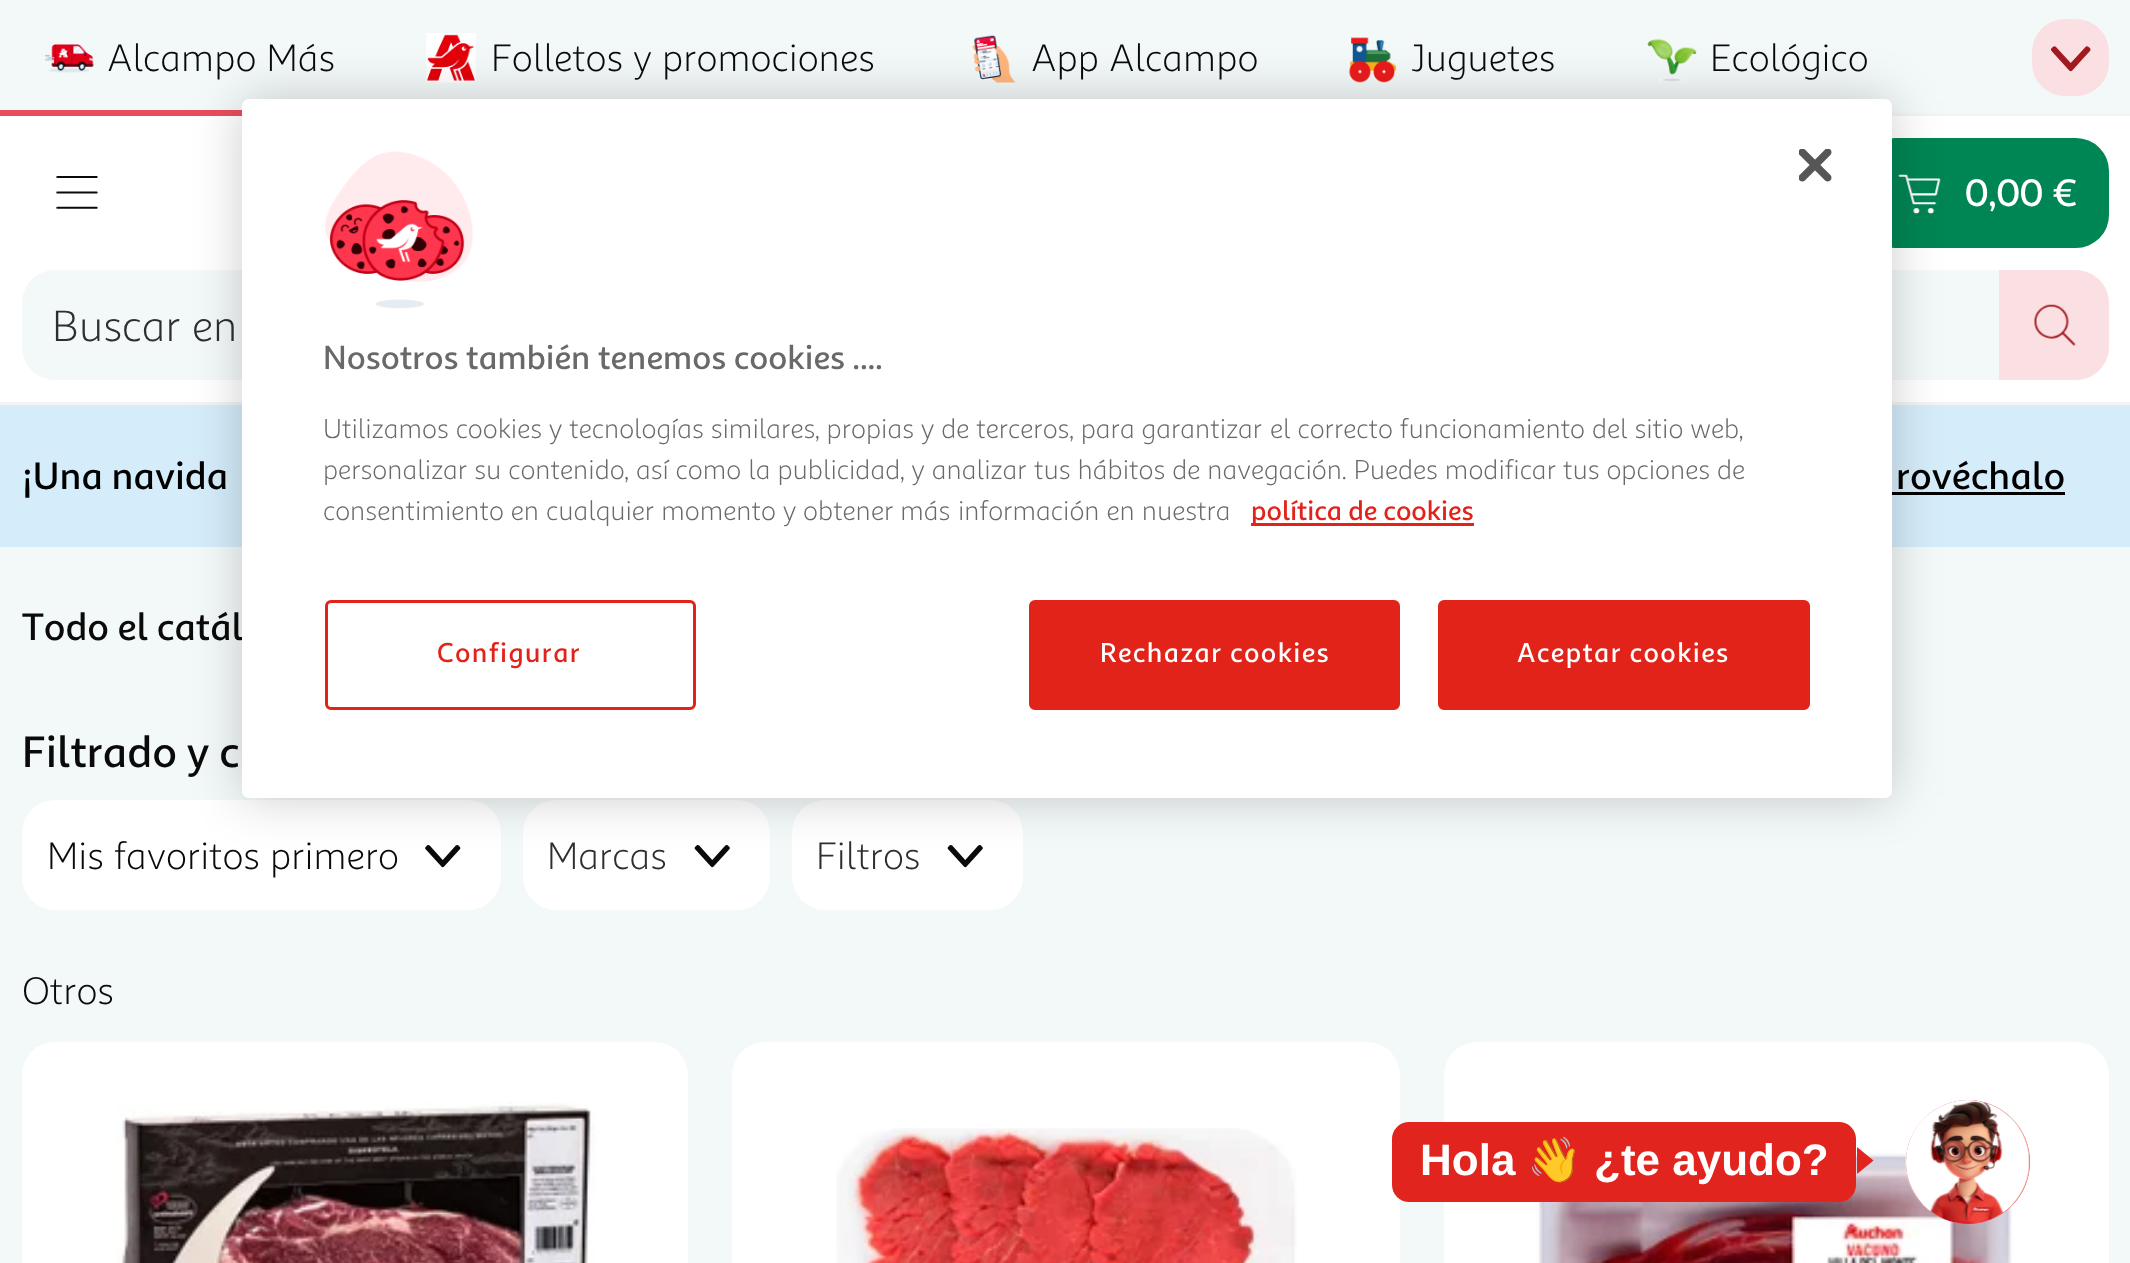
<svg xmlns="http://www.w3.org/2000/svg" width="2130" height="1263">
	<style>*{font-kerning:none!important;font-variant-ligatures:none!important}</style>
	<rect width="100%" height="100%" fill="#F3F8F8" />
	<image x="45" y="44" width="49" height="29" href="assets/img1.png" />
	<text x="107" y="71" font-family="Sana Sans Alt" font-size="38.5" fill="#0A0A0A">Alcampo Más</text>
	<rect x="0" y="110" width="242" height="6" fill="#E94C5E" />
	<image x="426" y="33" width="50" height="50" href="assets/img2.png" />
	<text x="491" y="71" font-family="Sana Sans Alt" font-size="38.5" fill="#0A0A0A">Folletos y promociones</text>
	<image x="972" y="35" width="44" height="48" href="assets/img3.png" />
	<text x="1031" y="71" font-family="Sana Sans Alt" font-size="38.5" fill="#0A0A0A">App Alcampo</text>
	<image x="1349" y="37" width="48" height="46" href="assets/img4.png" />
	<text x="1411" y="71" font-family="Sana Sans Alt" font-size="38.5" fill="#0A0A0A">Juguetes</text>
	<image x="1647" y="39" width="50" height="43" href="assets/img5.png" />
	<text x="1710" y="71" font-family="Sana Sans Alt" font-size="38.5" fill="#0A0A0A">Ecológico</text>
	<rect x="2032" y="19" width="77" height="77" rx="33" fill="#FBE0E3" />
	<image x="2051" y="46" width="40" height="26" href="assets/img6.png" />
	<rect x="1892" y="113" width="238" height="3" fill="#F2F3F4" />
	<rect x="0" y="402" width="2130" height="3" fill="#F2F3F4" />
	<rect x="0" y="116" width="2130" height="286" fill="#FFFFFF" />
	<image x="56" y="176" width="43" height="33" href="assets/img7.png" />
	<rect x="1862" y="138" width="247" height="110" rx="33" fill="#008554" />
	<image x="1898" y="174" width="43" height="40" href="assets/img8.png" />
	<text x="1965" y="206" font-family="Sana Sans Alt" font-size="38.5" font-weight="500" fill="#FFFFFF">0,00 €</text>
	<path d="M55 270H1999V380H55C37 380 22 365 22 347V303C22 285 37 270 55 270Z" fill="#F3F8F8" />
	<text x="52" y="341" font-family="Sana Sans Alt" font-size="44" fill="#2E2E2E">Buscar en</text>
	<path d="M1999 270H2076C2094 270 2109 285 2109 303V347C2109 365 2094 380 2076 380H1999Z" fill="#FBE0E3" />
	<image x="2034" y="304" width="42" height="42" href="assets/img9.png" />
	<rect x="0" y="405" width="2130" height="142" fill="#D5ECFA" />
	<g font-family="Sana Sans Alt" font-size="38.5" font-weight="500" fill="#000000">
		<text x="22" y="489">¡Una navida</text>
		<text x="1896" y="489">rovéchalo</text>
	</g>
	<rect x="1892" y="492" width="173" height="3" fill="#000000" />
	<text x="22" y="640" font-family="Sana Sans Alt" font-size="38.5" font-weight="500" fill="#0A0A0A">Todo el catál</text>
	<text x="22" y="767" font-family="Sana Sans Alt" font-size="44" font-weight="500" fill="#0A0A0A">Filtrado y c</text>
	<rect x="22" y="800" width="479" height="110" rx="33" fill="#FFFFFF" />
	<text x="47" y="869" font-family="Sana Sans Alt" font-size="38.5" fill="#0A0A0A">Mis favoritos primero</text>
	<image x="425" y="845" width="36" height="23" href="assets/img10.png" />
	<rect x="523" y="800" width="247" height="110" rx="33" fill="#FFFFFF" />
	<text x="547" y="869" font-family="Sana Sans Alt" font-size="38.5" fill="#2E2E2E">Marcas</text>
	<image x="694" y="845" width="36" height="23" href="assets/img11.png" />
	<rect x="792" y="800" width="231" height="110" rx="33" fill="#FFFFFF" />
	<text x="816" y="869" font-family="Sana Sans Alt" font-size="38.5" fill="#2E2E2E">Filtros</text>
	<image x="947" y="845" width="36" height="23" href="assets/img11.png" />
	<text x="22" y="1004" font-family="Sana Sans Alt" font-size="38.5" fill="#0A0A0A">Otros</text>
	<rect x="22" y="1042" width="666" height="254" rx="33" fill="#FFFFFF" />
	<image x="116" y="1102" width="480" height="161" href="assets/img12.png" />
	<rect x="732" y="1042" width="668" height="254" rx="33" fill="#FFFFFF" />
	<image x="836" y="1128" width="461" height="135" href="assets/img13.png" />
	<rect x="1444" y="1042" width="665" height="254" rx="33" fill="#FFFFFF" />
	<image x="1535" y="1150" width="480" height="113" href="assets/img14.png" />
	<rect x="242" y="99" width="1650" height="699" rx="7" fill="#000000" fill-opacity="0.2" filter="blur(25px)" />
	<rect x="242" y="99" width="1650" height="699" rx="7" fill="#FFFFFF" />
	<image x="1799" y="149" width="33" height="33" href="assets/img15.png" />
	<image x="325" y="151" width="148" height="158" href="assets/img16.png" />
	<text x="323" y="369" font-family="Sana Sans Alt" font-size="33.75" font-weight="500" fill="#696969">Nosotros también tenemos cookies ....</text>
	<g font-family="Sana Sans Alt" font-size="27.4" fill="#696969">
		<text x="323" y="438" word-spacing="-0.25">Utilizamos cookies y tecnologías similares, propias</text>
		<text x="921" y="438" word-spacing="-0.25">y de terceros, para garantizar</text>
		<text x="1270" y="438" word-spacing="-0.25">el correcto funcionamiento del sitio web,</text>
		<text x="323" y="479" word-spacing="-0.2">personalizar su contenido, así como la publicidad, y analizar</text>
		<text x="1034" y="479" word-spacing="-0.2">tus hábitos de navegación. Puedes modificar tus opciones</text>
		<text x="1717" y="479" word-spacing="-0.2">de</text>
		<text x="323" y="520" word-spacing="-0.25">consentimiento en cualquier momento y obtener más</text>
		<text x="958" y="520" word-spacing="-0.25">información en nuestra</text>
	</g>
	<rect x="1251" y="523" width="223" height="3" fill="#E2231A" />
	<text x="1251" y="520" font-family="Sana Sans Alt" font-size="27.4" font-weight="500" fill="#E2231A">política de cookies</text>
	<rect x="326.5" y="601.5" width="368" height="107" rx="4.5" fill="none" stroke="#E2231A" stroke-width="3" />
	<text x="437" y="662" font-family="Sana Sans Alt" font-size="27.4" font-weight="500" letter-spacing="1.4" fill="#E2231A">Configurar</text>
	<rect x="1030.5" y="601.5" width="368" height="107" rx="4.5" fill="#E2231A" stroke="#E2231A" stroke-width="3" />
	<text x="1100" y="662" font-family="Sana Sans Alt" font-size="27.4" font-weight="500" letter-spacing="1.4" fill="#FFFFFF">Rechazar cookies</text>
	<rect x="1439.5" y="601.5" width="369" height="107" rx="4.5" fill="#E2231A" stroke="#E2231A" stroke-width="3" />
	<text x="1517" y="662" font-family="Sana Sans Alt" font-size="27.4" font-weight="500" letter-spacing="1.4" fill="#FFFFFF">Aceptar cookies</text>
	<rect x="1392" y="1122" width="464" height="80" rx="17" fill="#E1241D" />
	<text x="1420" y="1175" font-family="Liberation Sans" font-size="44" font-weight="700" fill="#FFFFFF">Hola</text>
	<text x="1527" y="1175" font-family="Noto Color Emoji" font-size="44" font-weight="700" fill="#FFFFFF">👋</text>
	<text x="1594" y="1175" font-family="Liberation Sans" font-size="44" font-weight="700" fill="#FFFFFF">¿te ayudo?</text>
	<path d="M1857 1174V1147L1873.5 1160.5Z" fill="#E1241D" />
	<circle cx="1968" cy="1162" r="62" fill="#E1241D" />
	<image x="1905" y="1100" width="125" height="124" href="assets/img17.png" />
</svg>
